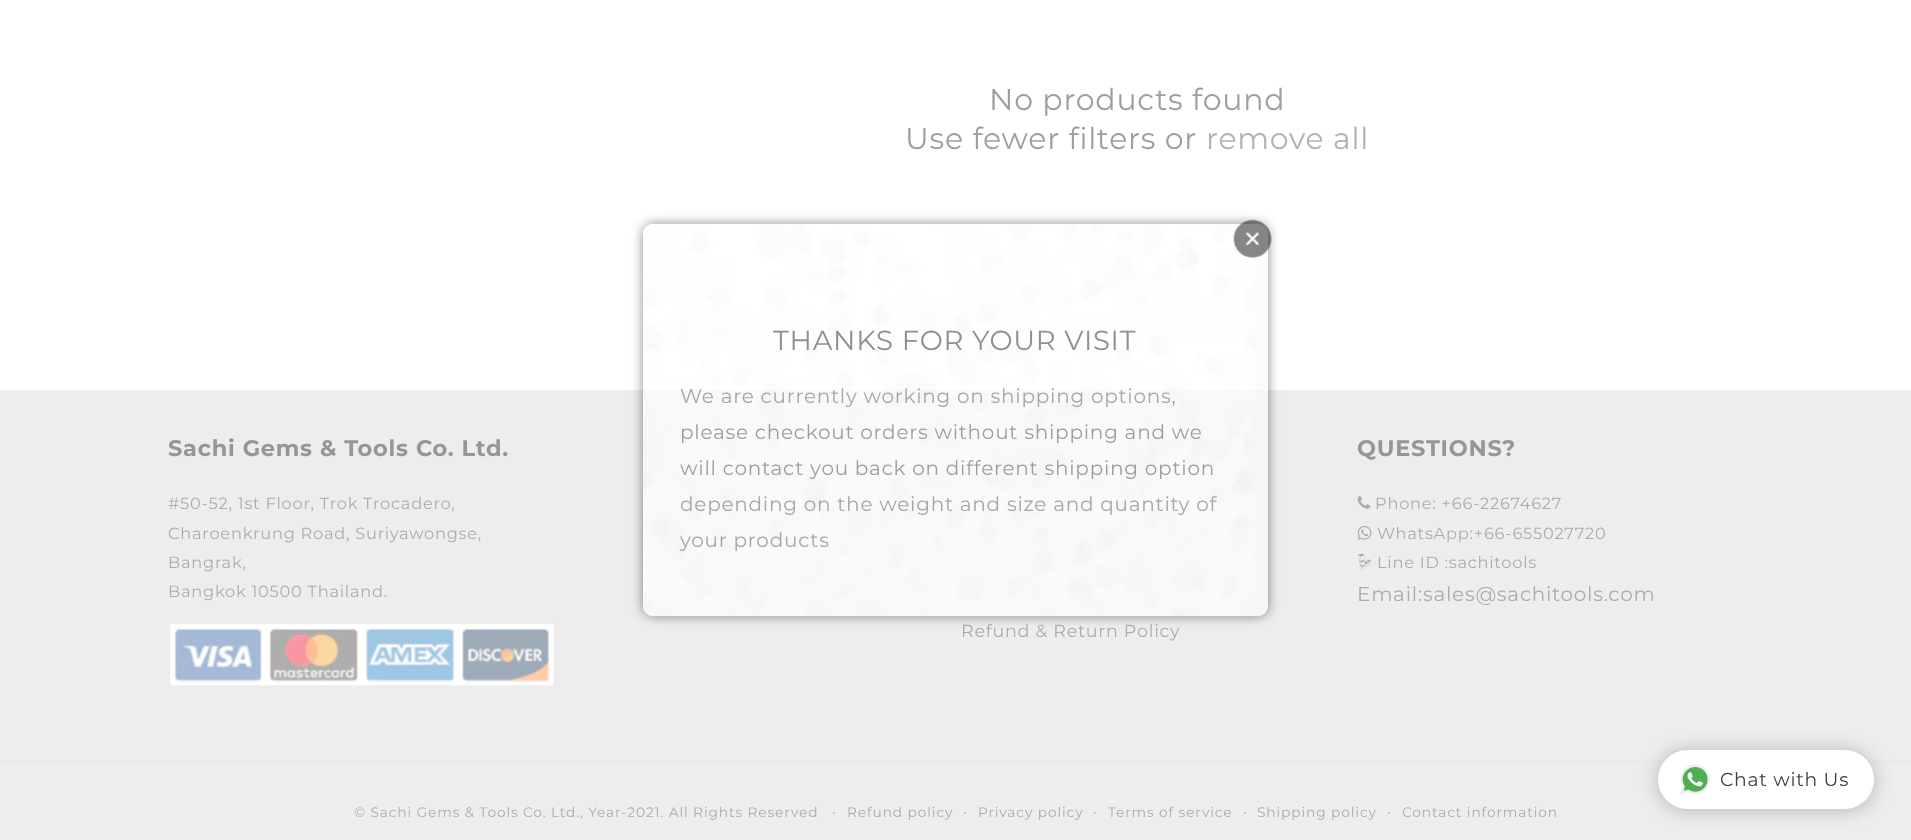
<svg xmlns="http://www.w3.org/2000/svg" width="1911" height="840">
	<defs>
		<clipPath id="clip1"><path d="M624 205H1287V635H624ZM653 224H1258C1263.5 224 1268 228.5 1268 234V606C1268 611.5 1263.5 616 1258 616H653C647.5 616 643 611.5 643 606V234C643 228.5 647.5 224 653 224Z" clip-rule="evenodd" /></clipPath>
	</defs>
	<rect width="100%" height="100%" fill="#FFFFFF" />
	<g font-family="Montserrat" font-size="30" letter-spacing="0.75" fill="#9E9E9E">
		<text x="989" y="110">No products found</text>
		<text x="905" y="149">Use fewer filters or</text>
	</g>
	<text x="1206" y="149" font-family="Montserrat" font-size="30" letter-spacing="0.75" fill="#B2B2B2">remove all</text>
	<rect x="0" y="390" width="1911" height="450" fill="#EEEDED" />
	<g clip-path="url(#clip1)">
		<rect x="643" y="224" width="625" height="392" rx="10" fill="#000000" fill-opacity="0.47" filter="blur(6px)" />
	</g>
	<rect x="643" y="224" width="625" height="392" rx="10" fill="#FFFFFF" fill-opacity="0.47" />
	<image x="643" y="223" width="624" height="394" href="assets/img1.png" />
	<image x="1233" y="219" width="39" height="39" href="assets/img2.png" />
	<text x="773" y="350" font-family="Montserrat" font-size="27.5" letter-spacing="0.75" fill="#8F8F8F">THANKS FOR YOUR VISIT</text>
	<text x="680" y="403" font-family="Montserrat" font-size="20" letter-spacing="0.75" fill="#A7A7A7">We are currently working on shipping options,</text>
	<g font-family="Montserrat" font-size="20" letter-spacing="0.75" fill="#9E9E9E">
		<text x="680" y="439">please checkout orders without shipping and we</text>
		<text x="680" y="475">will contact you back on different shipping option</text>
	</g>
	<g font-family="Montserrat" font-size="20" letter-spacing="0.75" fill="#A7A7A7">
		<text x="680" y="511">depending on the weight and size and quantity of</text>
		<text x="680" y="547">your products</text>
	</g>
	<text x="168" y="456" font-family="Montserrat" font-size="22.5" font-weight="700" letter-spacing="0.75" fill="#969696">Sachi Gems &amp; Tools Co. Ltd.</text>
	<g font-family="Montserrat" font-size="16.25" letter-spacing="0.75" fill="#ADACAC">
		<text x="168" y="509">#50-52, 1st Floor, Trok Trocadero,</text>
		<text x="168" y="539">Charoenkrung Road, Suriyawongse,</text>
		<text x="168" y="568">Bangrak,</text>
		<text x="168" y="597">Bangkok 10500 Thailand.</text>
	</g>
	<rect x="169.5" y="623.5" width="385" height="62" fill="none" stroke="#EAE8E8" />
	<image x="169" y="623" width="386" height="63" href="assets/img3.png" />
	<text x="1357" y="456" font-family="Montserrat" font-size="22.5" font-weight="700" letter-spacing="0.75" fill="#969696">QUESTIONS?</text>
	<image x="1357" y="496" width="14" height="13" href="assets/img4.png" />
	<text x="1375" y="509" font-family="Montserrat" font-size="16.25" letter-spacing="0.75" fill="#ADACAC">Phone: +66-22674627</text>
	<image x="1357" y="525" width="15" height="15" href="assets/img5.png" />
	<text x="1377" y="539" font-family="Montserrat" font-size="16.25" letter-spacing="0.75" fill="#ADACAC">WhatsApp:+66-655027720</text>
	<image x="1357" y="553" width="15" height="17" href="assets/img6.png" />
	<text x="1377" y="568" font-family="Montserrat" font-size="16.25" letter-spacing="0.75" fill="#ADACAC">Line ID :sachitools</text>
	<text x="1357" y="601" font-family="Montserrat" font-size="20" letter-spacing="0.75" fill="#ADACAC">Email:sales@sachitools.com</text>
	<text x="961" y="637" font-family="Montserrat" font-size="17.5" letter-spacing="0.75" fill="#ADACAC">Refund &amp; Return Policy</text>
	<rect x="0" y="761" width="1911" height="1" fill="#E7E6E6" />
	<text x="354" y="817" font-family="Montserrat" font-size="13.75" letter-spacing="0.88" fill="#ADACAC">© Sachi Gems &amp; Tools Co. Ltd., Year-2021. All Rights Reserved</text>
	<text x="832" y="817" font-family="Montserrat" font-size="15" letter-spacing="0.88" fill="#ADACAC">·</text>
	<text x="847" y="817" font-family="Montserrat" font-size="13.75" letter-spacing="0.88" fill="#ADACAC">Refund policy</text>
	<text x="963" y="817" font-family="Montserrat" font-size="15" letter-spacing="0.88" fill="#ADACAC">·</text>
	<text x="978" y="817" font-family="Montserrat" font-size="13.75" letter-spacing="0.88" fill="#ADACAC">Privacy policy</text>
	<text x="1093" y="817" font-family="Montserrat" font-size="15" letter-spacing="0.88" fill="#ADACAC">·</text>
	<text x="1108" y="817" font-family="Montserrat" font-size="13.75" letter-spacing="0.88" fill="#ADACAC">Terms of service</text>
	<text x="1243" y="817" font-family="Montserrat" font-size="15" letter-spacing="0.88" fill="#ADACAC">·</text>
	<text x="1257" y="817" font-family="Montserrat" font-size="13.75" letter-spacing="0.88" fill="#ADACAC">Shipping policy</text>
	<text x="1387" y="817" font-family="Montserrat" font-size="15" letter-spacing="0.88" fill="#ADACAC">·</text>
	<text x="1402" y="817" font-family="Montserrat" font-size="13.75" letter-spacing="0.88" fill="#ADACAC">Contact information</text>
	<rect x="1658" y="751" width="216" height="59" rx="29.5" fill="#202124" fill-opacity="0.28" filter="blur(9.5px)" />
	<rect x="1658" y="750" width="216" height="59" rx="29.5" fill="#FFFFFF" />
	<image x="1680" y="764" width="30" height="31" href="assets/img7.png" />
	<text x="1720" y="786" font-family="Montserrat" font-size="18.75" letter-spacing="0.75" fill="#404040">Chat with Us</text>
</svg>
